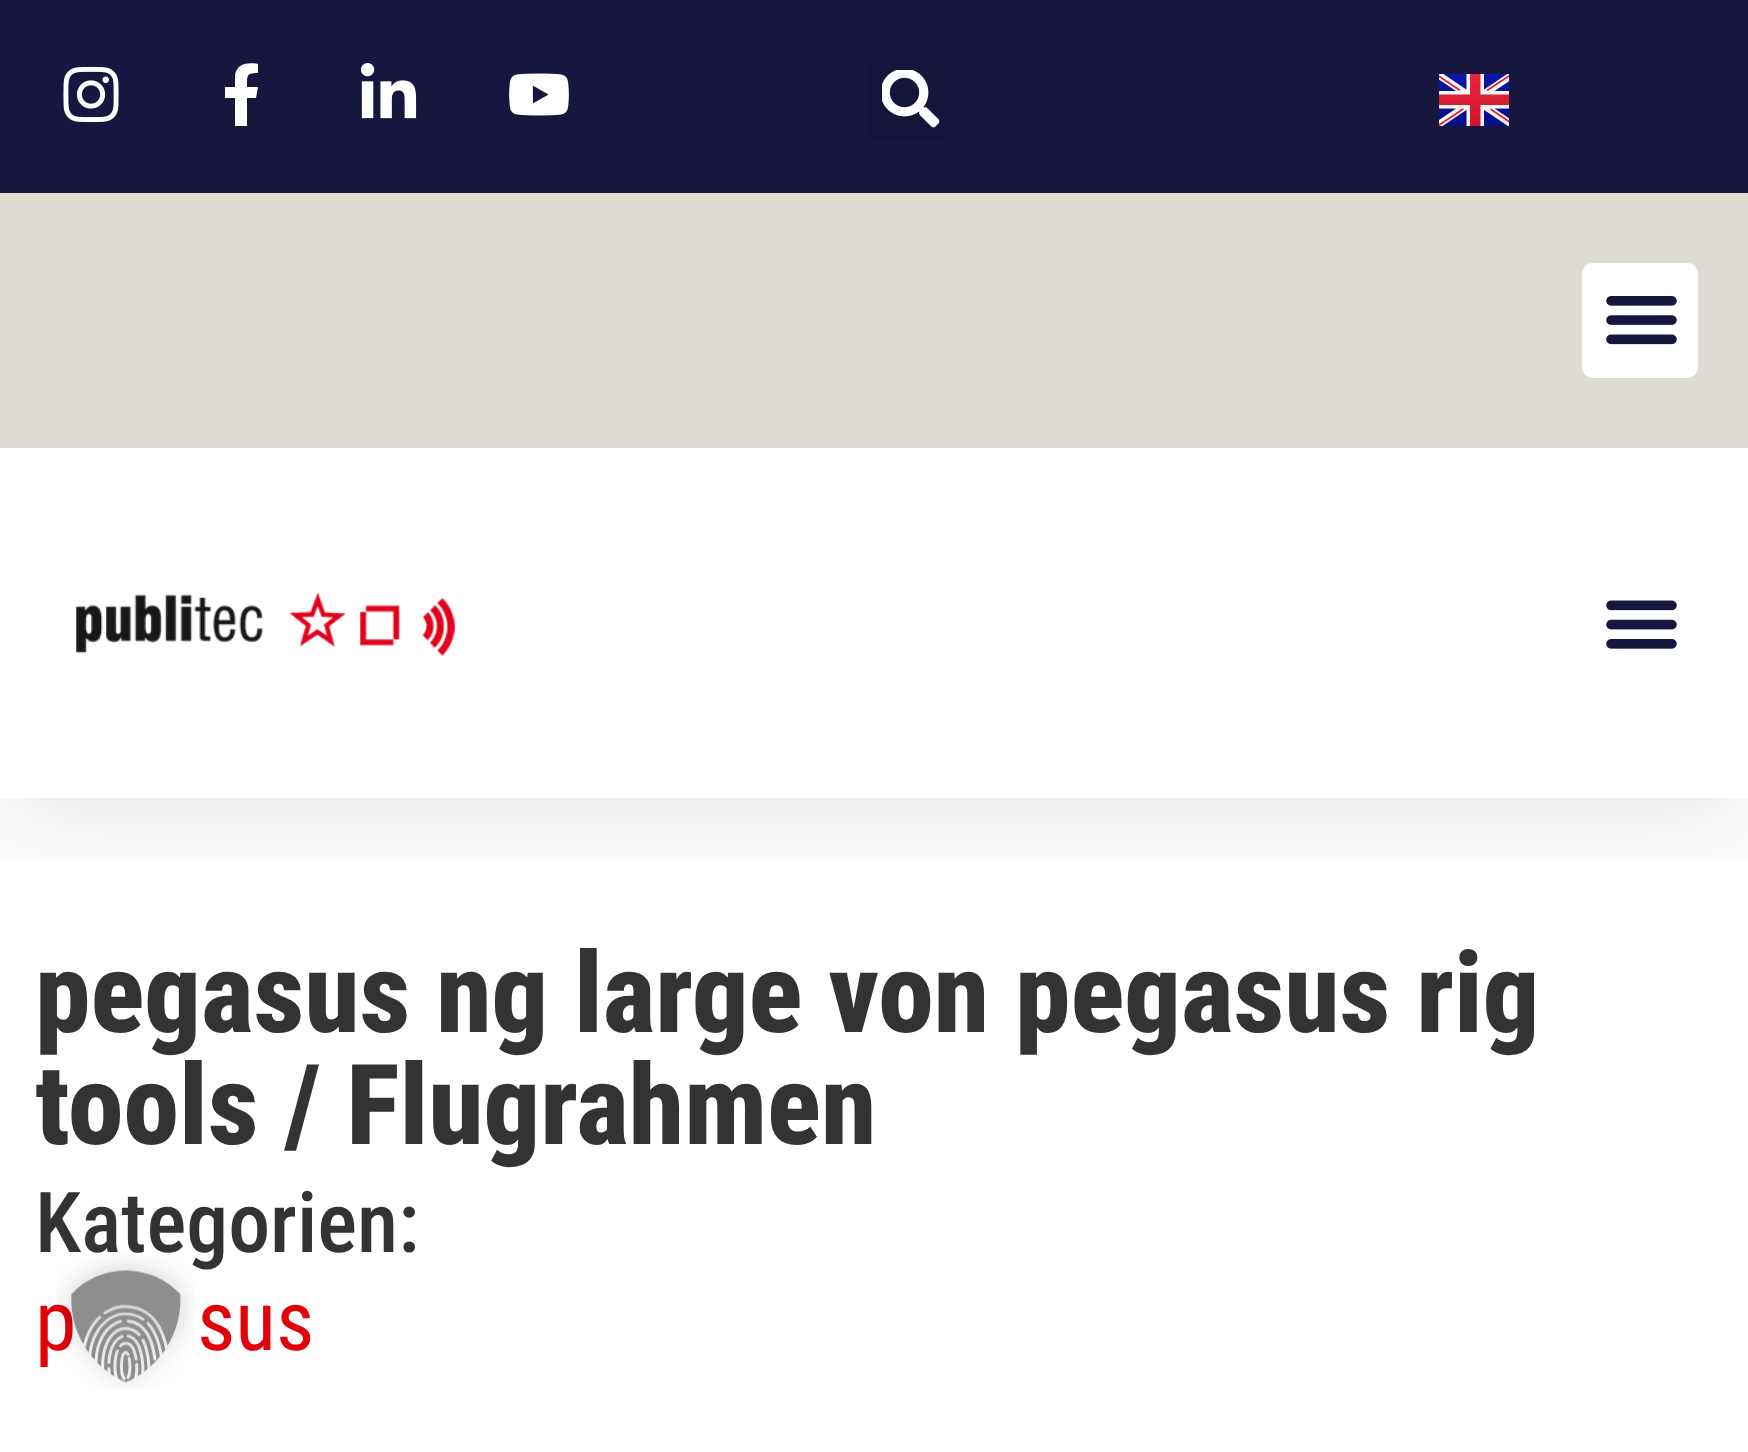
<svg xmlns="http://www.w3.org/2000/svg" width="1748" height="1452">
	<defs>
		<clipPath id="clip1"><rect x="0" y="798" width="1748" height="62" /></clipPath>
	</defs>
	<rect width="100%" height="100%" fill="#FFFFFF" />
	<g clip-path="url(#clip1)">
		<rect x="0" y="18" width="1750" height="798" fill="#000000" fill-opacity="0.1" filter="blur(52.5px)" />
	</g>
	<rect x="0" y="0" width="1748" height="193" fill="#16163F" />
	<image x="63" y="66" width="56" height="57" href="assets/img1.png" />
	<path d="M256 98L258 87H247C247 76 246 73 258 73V64C249 62 237 63 235 75V87H225V98H235V126H247V98Z" fill="#FFFFFF" />
	<image x="360" y="63" width="57" height="56" href="assets/img2.png" />
	<image x="509" y="73" width="60" height="43" href="assets/img3.png" />
	<rect x="868" y="56" width="84" height="84" rx="11" fill="#15153C" />
	<image x="882" y="70" width="58" height="58" href="assets/img4.png" />
	<image x="1439" y="74" width="70" height="52" href="assets/img5.png" />
	<rect x="0" y="193" width="1748" height="255" fill="#DEDCD3" />
	<rect x="1582" y="263" width="116" height="115" rx="11" fill="#FFFFFF" />
	<image x="1606" y="296" width="71" height="49" href="assets/img6.png" />
	<image x="76" y="592" width="379" height="64" href="assets/img7.png" />
	<image x="1606" y="600" width="71" height="49" href="assets/img8.png" />
	<g font-family="Roboto Condensed" font-size="112" font-weight="800" fill="#333333">
		<text x="35" y="1032">pegasus ng large von pegasus rig</text>
		<text x="35" y="1144">tools / Flugrahmen</text>
	</g>
	<text x="35" y="1252" font-family="Roboto Condensed" font-size="84" font-weight="500" fill="#333333">Kategorien:</text>
	<g font-family="Roboto Condensed" font-size="84" fill="#E2000A">
		<text x="35" y="1350">p</text>
		<text x="197" y="1350">sus</text>
	</g>
	<image x="57" y="1255" width="138" height="134" href="assets/img9.png" />
</svg>
